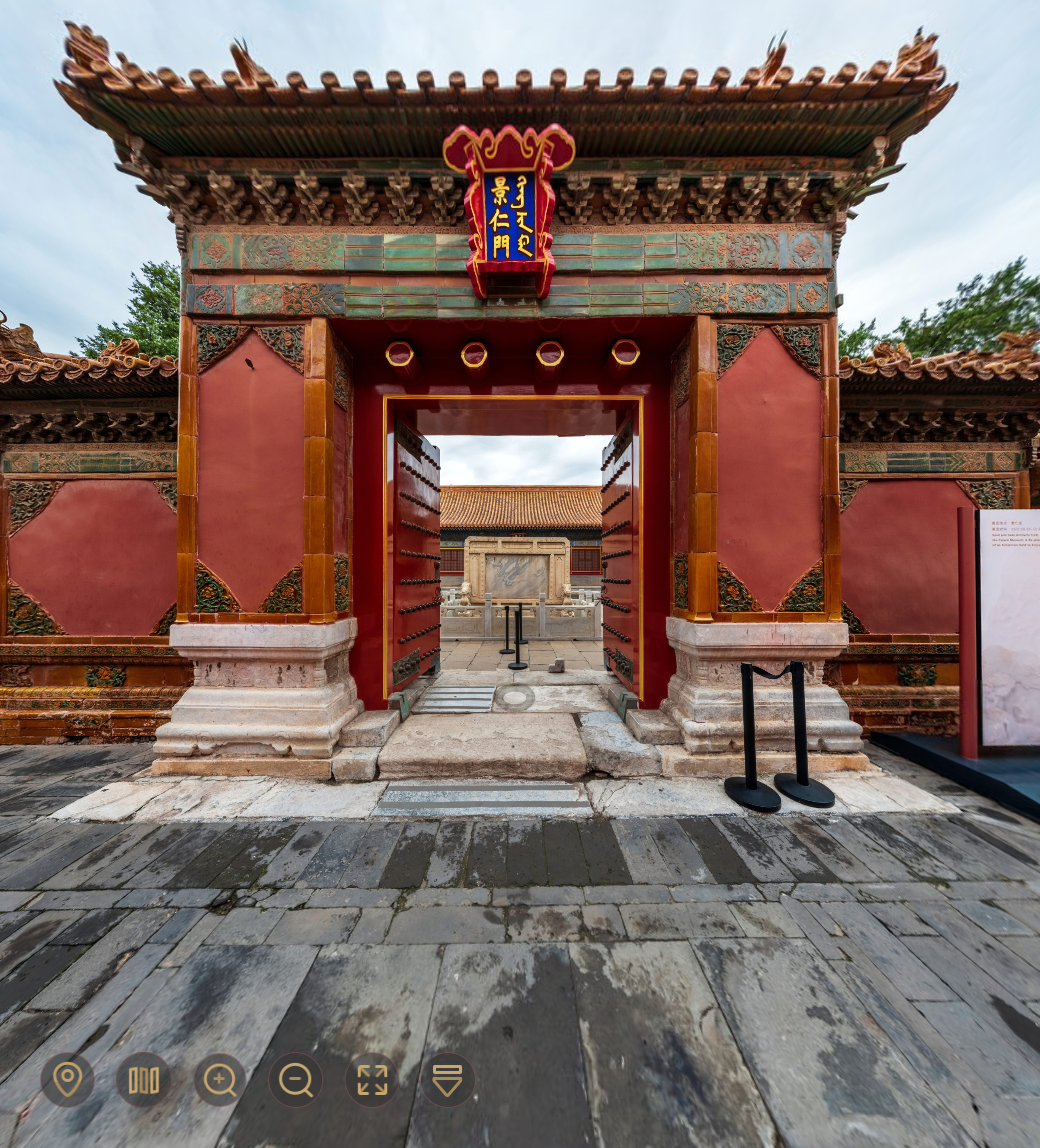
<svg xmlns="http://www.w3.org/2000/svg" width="1040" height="1148">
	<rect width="100%" height="100%" fill="#FFFFFF" />
	<image x="0" y="0" width="1040" height="1148" href="assets/img1.png" />
	<image x="494" y="683" width="42" height="30" href="assets/img2.png" />
	<image x="40" y="1052" width="56" height="56" href="assets/img3.png" />
	<image x="116" y="1052" width="56" height="56" href="assets/img4.png" />
	<image x="193" y="1053" width="54" height="54" href="assets/img5.png" />
	<image x="268" y="1052" width="56" height="56" href="assets/img6.png" />
	<image x="344" y="1052" width="56" height="56" href="assets/img7.png" />
	<image x="420" y="1052" width="56" height="56" href="assets/img8.png" />
</svg>
